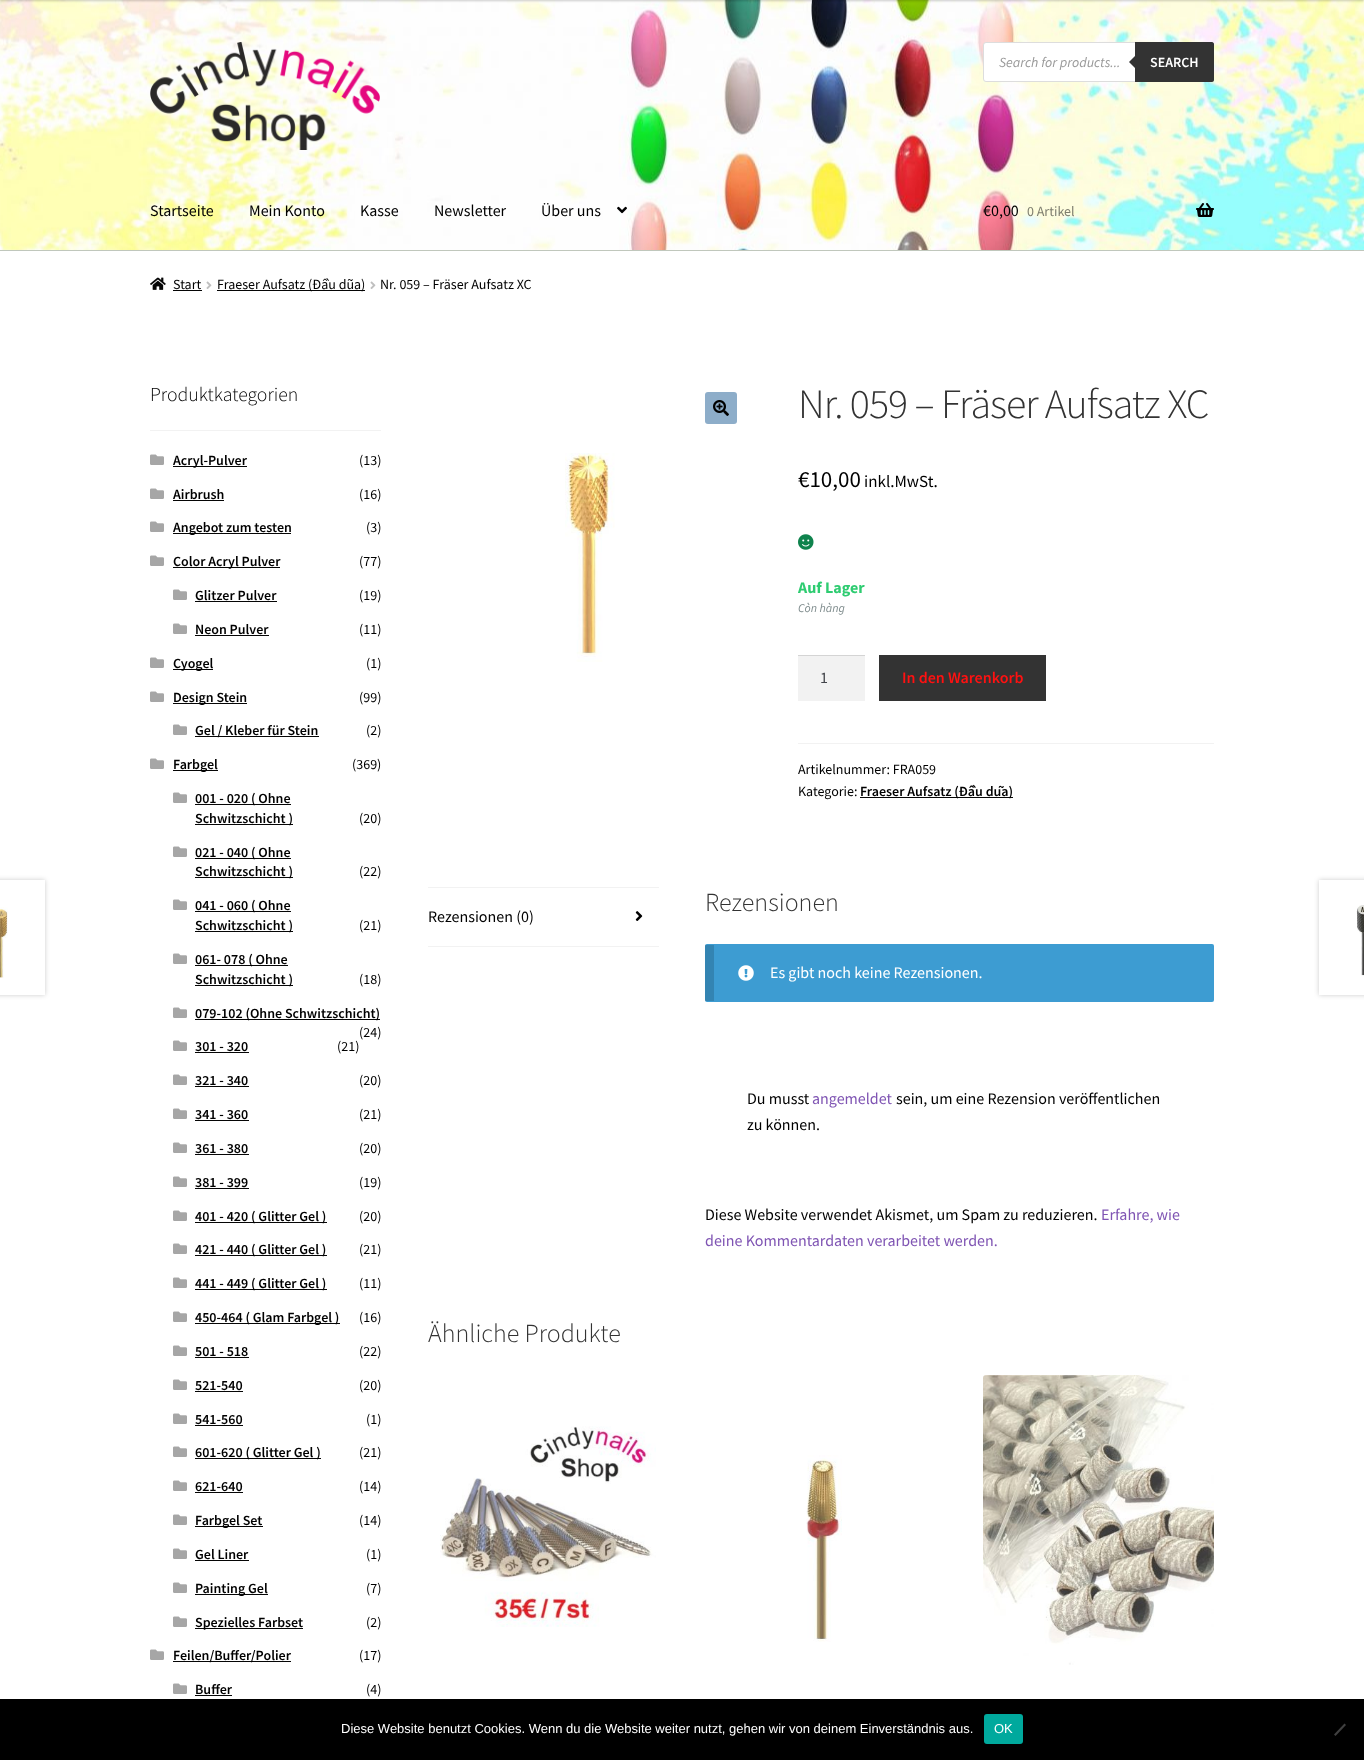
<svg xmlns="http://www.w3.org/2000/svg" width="1364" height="1760">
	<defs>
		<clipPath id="clip1"><path d="M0 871H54V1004H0ZM-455 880H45V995H-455Z" clip-rule="evenodd" /></clipPath>
		<clipPath id="clip2"><path d="M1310 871H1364V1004H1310ZM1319 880H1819V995H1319Z" clip-rule="evenodd" /></clipPath>
	</defs>
	<rect width="100%" height="100%" fill="#FFFFFF" />
	<image x="0" y="0" width="1364" height="250" href="assets/img1.png" />
	<rect x="0" y="-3" width="1364" height="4" fill="#000000" fill-opacity="0.2" filter="blur(1px)" />
	<rect x="0" y="250" width="1364" height="1" fill="#C0C7BC" />
	<image x="150" y="42" width="230" height="108" href="assets/img2.png" />
	<rect x="983.5" y="42.5" width="230" height="39" rx="2.5" fill="#FFFFFF" stroke="#DDDDDD" />
	<text x="999" y="67" font-family="Source Sans Pro" font-size="14" font-style="italic" fill="#999999">Search for products...</text>
	<path d="M1135 42H1212C1213 42 1214 43 1214 44V80C1214 81 1213 82 1212 82H1135Z" fill="#333333" />
	<path d="M1137 54V70L1129 62Z" fill="#333333" />
	<text x="1150" y="67" font-family="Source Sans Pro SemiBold" font-size="14" font-weight="600" fill="#FFFFFF">SEARCH</text>
	<g font-family="Source Sans Pro" font-size="16" fill="#000000">
		<text x="150" y="216">Startseite</text>
		<text x="249" y="216">Mein Konto</text>
		<text x="360" y="216">Kasse</text>
		<text x="434" y="216">Newsletter</text>
		<text x="541" y="216">Über uns</text>
	</g>
	<image x="617" y="206" width="10" height="8" href="assets/img3.png" />
	<text x="983" y="216" font-family="Source Sans Pro" font-size="16" fill="#000000">€0,00</text>
	<text x="1027" y="216" font-family="Source Sans Pro" font-size="14" fill="#7E7E6F">0 Artikel</text>
	<image x="1196" y="203" width="18" height="14" href="assets/img4.png" />
	<image x="150" y="277" width="16" height="13" href="assets/img5.png" />
	<text x="173" y="289" font-family="Source Sans Pro" font-size="14" fill="#000000">Start</text>
	<rect x="173" y="290" width="29" height="1" fill="#050505" />
	<image x="206" y="281" width="6" height="8" href="assets/img6.png" />
	<rect x="217" y="290" width="148" height="1" fill="#050505" />
	<text x="217" y="289" font-family="Source Sans Pro" font-size="14" fill="#000000">Fraeser Aufsatz (Đầu dũa)</text>
	<image x="370" y="281" width="6" height="8" href="assets/img6.png" />
	<text x="380" y="289" font-family="Source Sans Pro" font-size="14" fill="#000000">Nr. 059 – Fräser Aufsatz XC</text>
	<rect x="150" y="430" width="231" height="1" fill="#F2F2F2" />
	<text x="150" y="401" font-family="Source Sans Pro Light" font-size="19.75" font-weight="300" fill="#000000">Produktkategorien</text>
	<image x="150" y="454" width="14" height="11" href="assets/img7.png" />
	<rect x="173" y="466" width="74" height="1" fill="#050505" />
	<text x="173" y="465" font-family="Source Sans Pro SemiBold" font-size="14" font-weight="600" fill="#000000">Acryl-Pulver</text>
	<text x="359" y="465" font-family="Source Sans Pro" font-size="14" fill="#000000">(13)</text>
	<image x="150" y="488" width="14" height="11" href="assets/img7.png" />
	<text x="173" y="499" font-family="Source Sans Pro SemiBold" font-size="14" font-weight="600" fill="#000000">Airbrush</text>
	<rect x="173" y="500" width="51" height="1" fill="#050505" />
	<text x="359" y="499" font-family="Source Sans Pro" font-size="14" fill="#000000">(16)</text>
	<image x="150" y="521" width="14" height="11" href="assets/img7.png" />
	<rect x="173" y="533" width="118" height="1" fill="#050505" />
	<text x="173" y="532" font-family="Source Sans Pro SemiBold" font-size="14" font-weight="600" fill="#000000">Angebot zum testen</text>
	<text x="366" y="532" font-family="Source Sans Pro" font-size="14" fill="#000000">(3)</text>
	<image x="150" y="555" width="14" height="11" href="assets/img7.png" />
	<rect x="173" y="567" width="107" height="1" fill="#050505" />
	<text x="173" y="566" font-family="Source Sans Pro SemiBold" font-size="14" font-weight="600" fill="#000000">Color Acryl Pulver</text>
	<text x="359" y="566" font-family="Source Sans Pro" font-size="14" fill="#000000">(77)</text>
	<image x="173" y="589" width="14" height="11" href="assets/img7.png" />
	<text x="195" y="600" font-family="Source Sans Pro SemiBold" font-size="14" font-weight="600" fill="#000000">Glitzer Pulver</text>
	<rect x="195" y="601" width="82" height="1" fill="#050505" />
	<text x="359" y="600" font-family="Source Sans Pro" font-size="14" fill="#000000">(19)</text>
	<image x="173" y="623" width="14" height="11" href="assets/img7.png" />
	<text x="195" y="634" font-family="Source Sans Pro SemiBold" font-size="14" font-weight="600" fill="#000000">Neon Pulver</text>
	<rect x="195" y="635" width="74" height="1" fill="#050505" />
	<text x="359" y="634" font-family="Source Sans Pro" font-size="14" fill="#000000">(11)</text>
	<image x="150" y="657" width="14" height="11" href="assets/img7.png" />
	<rect x="173" y="669" width="40" height="1" fill="#050505" />
	<text x="173" y="668" font-family="Source Sans Pro SemiBold" font-size="14" font-weight="600" fill="#000000">Cyogel</text>
	<text x="366" y="668" font-family="Source Sans Pro" font-size="14" fill="#000000">(1)</text>
	<image x="150" y="691" width="14" height="11" href="assets/img7.png" />
	<rect x="173" y="703" width="74" height="1" fill="#050505" />
	<text x="173" y="702" font-family="Source Sans Pro SemiBold" font-size="14" font-weight="600" fill="#000000">Design Stein</text>
	<text x="359" y="702" font-family="Source Sans Pro" font-size="14" fill="#000000">(99)</text>
	<image x="173" y="724" width="14" height="11" href="assets/img7.png" />
	<rect x="195" y="736" width="124" height="1" fill="#050505" />
	<text x="195" y="735" font-family="Source Sans Pro SemiBold" font-size="14" font-weight="600" fill="#000000">Gel / Kleber für Stein</text>
	<text x="366" y="735" font-family="Source Sans Pro" font-size="14" fill="#000000">(2)</text>
	<image x="150" y="758" width="14" height="11" href="assets/img7.png" />
	<rect x="173" y="770" width="45" height="1" fill="#050505" />
	<text x="173" y="769" font-family="Source Sans Pro SemiBold" font-size="14" font-weight="600" fill="#000000">Farbgel</text>
	<text x="352" y="769" font-family="Source Sans Pro" font-size="14" fill="#000000">(369)</text>
	<image x="173" y="792" width="14" height="11" href="assets/img7.png" />
	<rect x="195" y="804" width="96" height="1" fill="#050505" />
	<text x="195" y="803" font-family="Source Sans Pro SemiBold" font-size="14" font-weight="600" fill="#000000">001 - 020 ( Ohne</text>
	<rect x="195" y="824" width="98" height="1" fill="#050505" />
	<text x="195" y="823" font-family="Source Sans Pro SemiBold" font-size="14" font-weight="600" fill="#000000">Schwitzschicht )</text>
	<text x="359" y="823" font-family="Source Sans Pro" font-size="14" fill="#000000">(20)</text>
	<image x="173" y="846" width="14" height="11" href="assets/img7.png" />
	<rect x="195" y="858" width="96" height="1" fill="#050505" />
	<text x="195" y="857" font-family="Source Sans Pro SemiBold" font-size="14" font-weight="600" fill="#000000">021 - 040 ( Ohne</text>
	<rect x="195" y="877" width="98" height="1" fill="#050505" />
	<text x="195" y="876" font-family="Source Sans Pro SemiBold" font-size="14" font-weight="600" fill="#000000">Schwitzschicht )</text>
	<text x="359" y="876" font-family="Source Sans Pro" font-size="14" fill="#000000">(22)</text>
	<image x="173" y="899" width="14" height="11" href="assets/img7.png" />
	<rect x="195" y="911" width="96" height="1" fill="#050505" />
	<text x="195" y="910" font-family="Source Sans Pro SemiBold" font-size="14" font-weight="600" fill="#000000">041 - 060 ( Ohne</text>
	<rect x="195" y="931" width="98" height="1" fill="#050505" />
	<text x="195" y="930" font-family="Source Sans Pro SemiBold" font-size="14" font-weight="600" fill="#000000">Schwitzschicht )</text>
	<text x="359" y="930" font-family="Source Sans Pro" font-size="14" fill="#000000">(21)</text>
	<image x="173" y="953" width="14" height="11" href="assets/img7.png" />
	<rect x="195" y="965" width="93" height="1" fill="#050505" />
	<text x="195" y="964" font-family="Source Sans Pro SemiBold" font-size="14" font-weight="600" fill="#000000">061- 078 ( Ohne</text>
	<rect x="195" y="985" width="98" height="1" fill="#050505" />
	<text x="195" y="984" font-family="Source Sans Pro SemiBold" font-size="14" font-weight="600" fill="#000000">Schwitzschicht )</text>
	<text x="359" y="984" font-family="Source Sans Pro" font-size="14" fill="#000000">(18)</text>
	<image x="173" y="1007" width="14" height="11" href="assets/img7.png" />
	<rect x="195" y="1019" width="185" height="1" fill="#050505" />
	<text x="195" y="1018" font-family="Source Sans Pro SemiBold" font-size="14" font-weight="600" fill="#000000">079-102 (Ohne Schwitzschicht)</text>
	<text x="359" y="1037" font-family="Source Sans Pro" font-size="14" fill="#000000">(24)</text>
	<image x="173" y="1040" width="14" height="11" href="assets/img7.png" />
	<text x="195" y="1051" font-family="Source Sans Pro SemiBold" font-size="14" font-weight="600" fill="#000000">301 - 320</text>
	<rect x="195" y="1052" width="54" height="1" fill="#050505" />
	<text x="337" y="1051" font-family="Source Sans Pro" font-size="14" fill="#000000">(21)</text>
	<image x="173" y="1074" width="14" height="11" href="assets/img7.png" />
	<text x="195" y="1085" font-family="Source Sans Pro SemiBold" font-size="14" font-weight="600" fill="#000000">321 - 340</text>
	<rect x="195" y="1086" width="54" height="1" fill="#050505" />
	<text x="359" y="1085" font-family="Source Sans Pro" font-size="14" fill="#000000">(20)</text>
	<image x="173" y="1108" width="14" height="11" href="assets/img7.png" />
	<text x="195" y="1119" font-family="Source Sans Pro SemiBold" font-size="14" font-weight="600" fill="#000000">341 - 360</text>
	<rect x="195" y="1120" width="54" height="1" fill="#050505" />
	<text x="359" y="1119" font-family="Source Sans Pro" font-size="14" fill="#000000">(21)</text>
	<image x="173" y="1142" width="14" height="11" href="assets/img7.png" />
	<text x="195" y="1153" font-family="Source Sans Pro SemiBold" font-size="14" font-weight="600" fill="#000000">361 - 380</text>
	<rect x="195" y="1154" width="54" height="1" fill="#050505" />
	<text x="359" y="1153" font-family="Source Sans Pro" font-size="14" fill="#000000">(20)</text>
	<image x="173" y="1176" width="14" height="11" href="assets/img7.png" />
	<text x="195" y="1187" font-family="Source Sans Pro SemiBold" font-size="14" font-weight="600" fill="#000000">381 - 399</text>
	<rect x="195" y="1188" width="54" height="1" fill="#050505" />
	<text x="359" y="1187" font-family="Source Sans Pro" font-size="14" fill="#000000">(19)</text>
	<image x="173" y="1210" width="14" height="11" href="assets/img7.png" />
	<rect x="195" y="1222" width="132" height="1" fill="#050505" />
	<text x="195" y="1221" font-family="Source Sans Pro SemiBold" font-size="14" font-weight="600" fill="#000000">401 - 420 ( Glitter Gel )</text>
	<text x="359" y="1221" font-family="Source Sans Pro" font-size="14" fill="#000000">(20)</text>
	<image x="173" y="1243" width="14" height="11" href="assets/img7.png" />
	<rect x="195" y="1255" width="132" height="1" fill="#050505" />
	<text x="195" y="1254" font-family="Source Sans Pro SemiBold" font-size="14" font-weight="600" fill="#000000">421 - 440 ( Glitter Gel )</text>
	<text x="359" y="1254" font-family="Source Sans Pro" font-size="14" fill="#000000">(21)</text>
	<image x="173" y="1277" width="14" height="11" href="assets/img7.png" />
	<rect x="195" y="1289" width="132" height="1" fill="#050505" />
	<text x="195" y="1288" font-family="Source Sans Pro SemiBold" font-size="14" font-weight="600" fill="#000000">441 - 449 ( Glitter Gel )</text>
	<text x="359" y="1288" font-family="Source Sans Pro" font-size="14" fill="#000000">(11)</text>
	<image x="173" y="1311" width="14" height="11" href="assets/img7.png" />
	<rect x="195" y="1323" width="145" height="1" fill="#050505" />
	<text x="195" y="1322" font-family="Source Sans Pro SemiBold" font-size="14" font-weight="600" fill="#000000">450-464 ( Glam Farbgel )</text>
	<text x="359" y="1322" font-family="Source Sans Pro" font-size="14" fill="#000000">(16)</text>
	<image x="173" y="1345" width="14" height="11" href="assets/img7.png" />
	<text x="195" y="1356" font-family="Source Sans Pro SemiBold" font-size="14" font-weight="600" fill="#000000">501 - 518</text>
	<rect x="195" y="1357" width="54" height="1" fill="#050505" />
	<text x="359" y="1356" font-family="Source Sans Pro" font-size="14" fill="#000000">(22)</text>
	<image x="173" y="1379" width="14" height="11" href="assets/img7.png" />
	<text x="195" y="1390" font-family="Source Sans Pro SemiBold" font-size="14" font-weight="600" fill="#000000">521-540</text>
	<rect x="195" y="1391" width="48" height="1" fill="#050505" />
	<text x="359" y="1390" font-family="Source Sans Pro" font-size="14" fill="#000000">(20)</text>
	<image x="173" y="1413" width="14" height="11" href="assets/img7.png" />
	<text x="195" y="1424" font-family="Source Sans Pro SemiBold" font-size="14" font-weight="600" fill="#000000">541-560</text>
	<rect x="195" y="1425" width="48" height="1" fill="#050505" />
	<text x="366" y="1424" font-family="Source Sans Pro" font-size="14" fill="#000000">(1)</text>
	<image x="173" y="1446" width="14" height="11" href="assets/img7.png" />
	<rect x="195" y="1458" width="126" height="1" fill="#050505" />
	<text x="195" y="1457" font-family="Source Sans Pro SemiBold" font-size="14" font-weight="600" fill="#000000">601-620 ( Glitter Gel )</text>
	<text x="359" y="1457" font-family="Source Sans Pro" font-size="14" fill="#000000">(21)</text>
	<image x="173" y="1480" width="14" height="11" href="assets/img7.png" />
	<text x="195" y="1491" font-family="Source Sans Pro SemiBold" font-size="14" font-weight="600" fill="#000000">621-640</text>
	<rect x="195" y="1492" width="48" height="1" fill="#050505" />
	<text x="359" y="1491" font-family="Source Sans Pro" font-size="14" fill="#000000">(14)</text>
	<image x="173" y="1514" width="14" height="11" href="assets/img7.png" />
	<rect x="195" y="1526" width="68" height="1" fill="#050505" />
	<text x="195" y="1525" font-family="Source Sans Pro SemiBold" font-size="14" font-weight="600" fill="#000000">Farbgel Set</text>
	<text x="359" y="1525" font-family="Source Sans Pro" font-size="14" fill="#000000">(14)</text>
	<image x="173" y="1548" width="14" height="11" href="assets/img7.png" />
	<text x="195" y="1559" font-family="Source Sans Pro SemiBold" font-size="14" font-weight="600" fill="#000000">Gel Liner</text>
	<rect x="195" y="1560" width="54" height="1" fill="#050505" />
	<text x="366" y="1559" font-family="Source Sans Pro" font-size="14" fill="#000000">(1)</text>
	<image x="173" y="1582" width="14" height="11" href="assets/img7.png" />
	<rect x="195" y="1594" width="73" height="1" fill="#050505" />
	<text x="195" y="1593" font-family="Source Sans Pro SemiBold" font-size="14" font-weight="600" fill="#000000">Painting Gel</text>
	<text x="366" y="1593" font-family="Source Sans Pro" font-size="14" fill="#000000">(7)</text>
	<image x="173" y="1616" width="14" height="11" href="assets/img7.png" />
	<rect x="195" y="1628" width="108" height="1" fill="#050505" />
	<text x="195" y="1627" font-family="Source Sans Pro SemiBold" font-size="14" font-weight="600" fill="#000000">Spezielles Farbset</text>
	<text x="366" y="1627" font-family="Source Sans Pro" font-size="14" fill="#000000">(2)</text>
	<image x="150" y="1649" width="14" height="11" href="assets/img7.png" />
	<rect x="173" y="1661" width="118" height="1" fill="#050505" />
	<text x="173" y="1660" font-family="Source Sans Pro SemiBold" font-size="14" font-weight="600" fill="#000000">Feilen/Buffer/Polier</text>
	<text x="359" y="1660" font-family="Source Sans Pro" font-size="14" fill="#000000">(17)</text>
	<image x="173" y="1683" width="14" height="11" href="assets/img7.png" />
	<text x="195" y="1694" font-family="Source Sans Pro SemiBold" font-size="14" font-weight="600" fill="#000000">Buffer</text>
	<rect x="195" y="1695" width="37" height="1" fill="#050505" />
	<text x="366" y="1694" font-family="Source Sans Pro" font-size="14" fill="#000000">(4)</text>
	<rect x="705" y="392" width="32" height="32" rx="3" fill="#8DADC9" />
	<image x="713" y="400" width="16" height="16" href="assets/img8.png" />
	<image x="565" y="453" width="50" height="209" href="assets/img9.png" />
	<text x="798" y="418" font-family="Source Sans Pro Light" font-size="41.9" font-weight="300" letter-spacing="-1" fill="#333333">Nr. 059 – Fräser Aufsatz XC</text>
	<text x="798" y="487" font-family="Source Sans Pro" font-size="23" fill="#000000">€10,00</text>
	<text x="864" y="487" font-family="Source Sans Pro" font-size="17" fill="#000000">inkl.MwSt.</text>
	<image x="798" y="534" width="16" height="16" href="assets/img10.png" />
	<text x="798" y="593" font-family="Source Sans Pro" font-size="16" font-weight="700" fill="#2ECC71">Auf Lager</text>
	<text x="798" y="612" font-family="Source Sans Pro" font-size="12" font-style="italic" fill="#7F8C8D">Còn hàng</text>
	<rect x="798" y="656" width="67" height="45" fill="#F2F2F2" />
	<rect x="798" y="655" width="67" height="1" fill="#D4D4D4" />
	<text x="820" y="683" font-family="Source Sans Pro" font-size="16" fill="#43454B">1</text>
	<rect x="879" y="655" width="167" height="46" fill="#333333" />
	<text x="902" y="683" font-family="Source Sans Pro SemiBold" font-size="16" font-weight="600" fill="#FF1111">In den Warenkorb</text>
	<rect x="798" y="743" width="416" height="1" fill="#F2F2F2" />
	<g font-family="Source Sans Pro" font-size="14" fill="#000000">
		<text x="798" y="774">Artikelnummer: FRA059</text>
		<text x="798" y="796">Kategorie:</text>
	</g>
	<rect x="860" y="797" width="153" height="1" fill="#050505" />
	<text x="860" y="796" font-family="Source Sans Pro SemiBold" font-size="14" font-weight="600" fill="#000000">Fraeser Aufsatz (Đầu dũa)</text>
	<g clip-path="url(#clip1)">
		<rect x="-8" y="880" width="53" height="115" fill="#000000" fill-opacity="0.2" filter="blur(2.5px)" />
	</g>
	<image x="0" y="907" width="8" height="71" href="assets/img11.png" />
	<g clip-path="url(#clip2)">
		<rect x="1319" y="880" width="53" height="115" fill="#000000" fill-opacity="0.2" filter="blur(2.5px)" />
	</g>
	<image x="1356" y="905" width="8" height="71" href="assets/img12.png" />
	<rect x="428" y="887" width="231" height="1" fill="#F2F2F2" />
	<rect x="428" y="946" width="231" height="1" fill="#F2F2F2" />
	<text x="428" y="922" font-family="Source Sans Pro" font-size="16" fill="#000000">Rezensionen (0)</text>
	<image x="635" y="911" width="8" height="10" href="assets/img13.png" />
	<text x="705" y="911" font-family="Source Sans Pro Light" font-size="26" font-weight="300" fill="#333333">Rezensionen</text>
	<rect x="705" y="944" width="509" height="58" rx="2" fill="#3D9CD2" />
	<rect x="705" y="945" width="9" height="56" fill="#000000" fill-opacity="0.15" />
	<image x="738" y="965" width="16" height="16" href="assets/img14.png" />
	<text x="770" y="978" font-family="Source Sans Pro" font-size="16" fill="#FFFFFF">Es gibt noch keine Rezensionen.</text>
	<text x="747" y="1104" font-family="Source Sans Pro" font-size="16" fill="#000000">Du musst</text>
	<text x="812" y="1104" font-family="Source Sans Pro" font-size="16" fill="#7F54B3">angemeldet</text>
	<g font-family="Source Sans Pro" font-size="16" fill="#000000">
		<text x="896" y="1104">sein, um eine Rezension veröffentlichen</text>
		<text x="747" y="1130">zu können.</text>
		<text x="705" y="1220">Diese Website verwendet Akismet, um Spam zu reduzieren.</text>
	</g>
	<g font-family="Source Sans Pro" font-size="16" fill="#7F54B3">
		<text x="1101" y="1220">Erfahre, wie</text>
		<text x="705" y="1246">deine Kommentardaten verarbeitet werden.</text>
	</g>
	<text x="428" y="1342" font-family="Source Sans Pro Light" font-size="26" font-weight="300" fill="#333333">Ähnliche Produkte</text>
	<image x="440" y="1426" width="216" height="201" href="assets/img15.png" />
	<image x="806" y="1455" width="36" height="187" href="assets/img16.png" />
	<image x="983" y="1375" width="231" height="290" href="assets/img17.png" />
	<rect x="0" y="1699" width="1364" height="61" fill="#000000" />
	<text x="341" y="1733" font-family="Liberation Sans" font-size="13" fill="#FFFFFF">Diese Website benutzt Cookies. Wenn du die Website weiter nutzt, gehen wir von deinem Einverständnis aus.</text>
	<rect x="984" y="1714" width="39" height="30" rx="3" fill="#00A99D" />
	<text x="994" y="1733" font-family="Liberation Sans" font-size="13" fill="#FFFFFF">OK</text>
	<path d="M1344.5 1723.5L1346 1725L1335.5 1736L1334 1734.5Z" fill="#404040" />
</svg>
